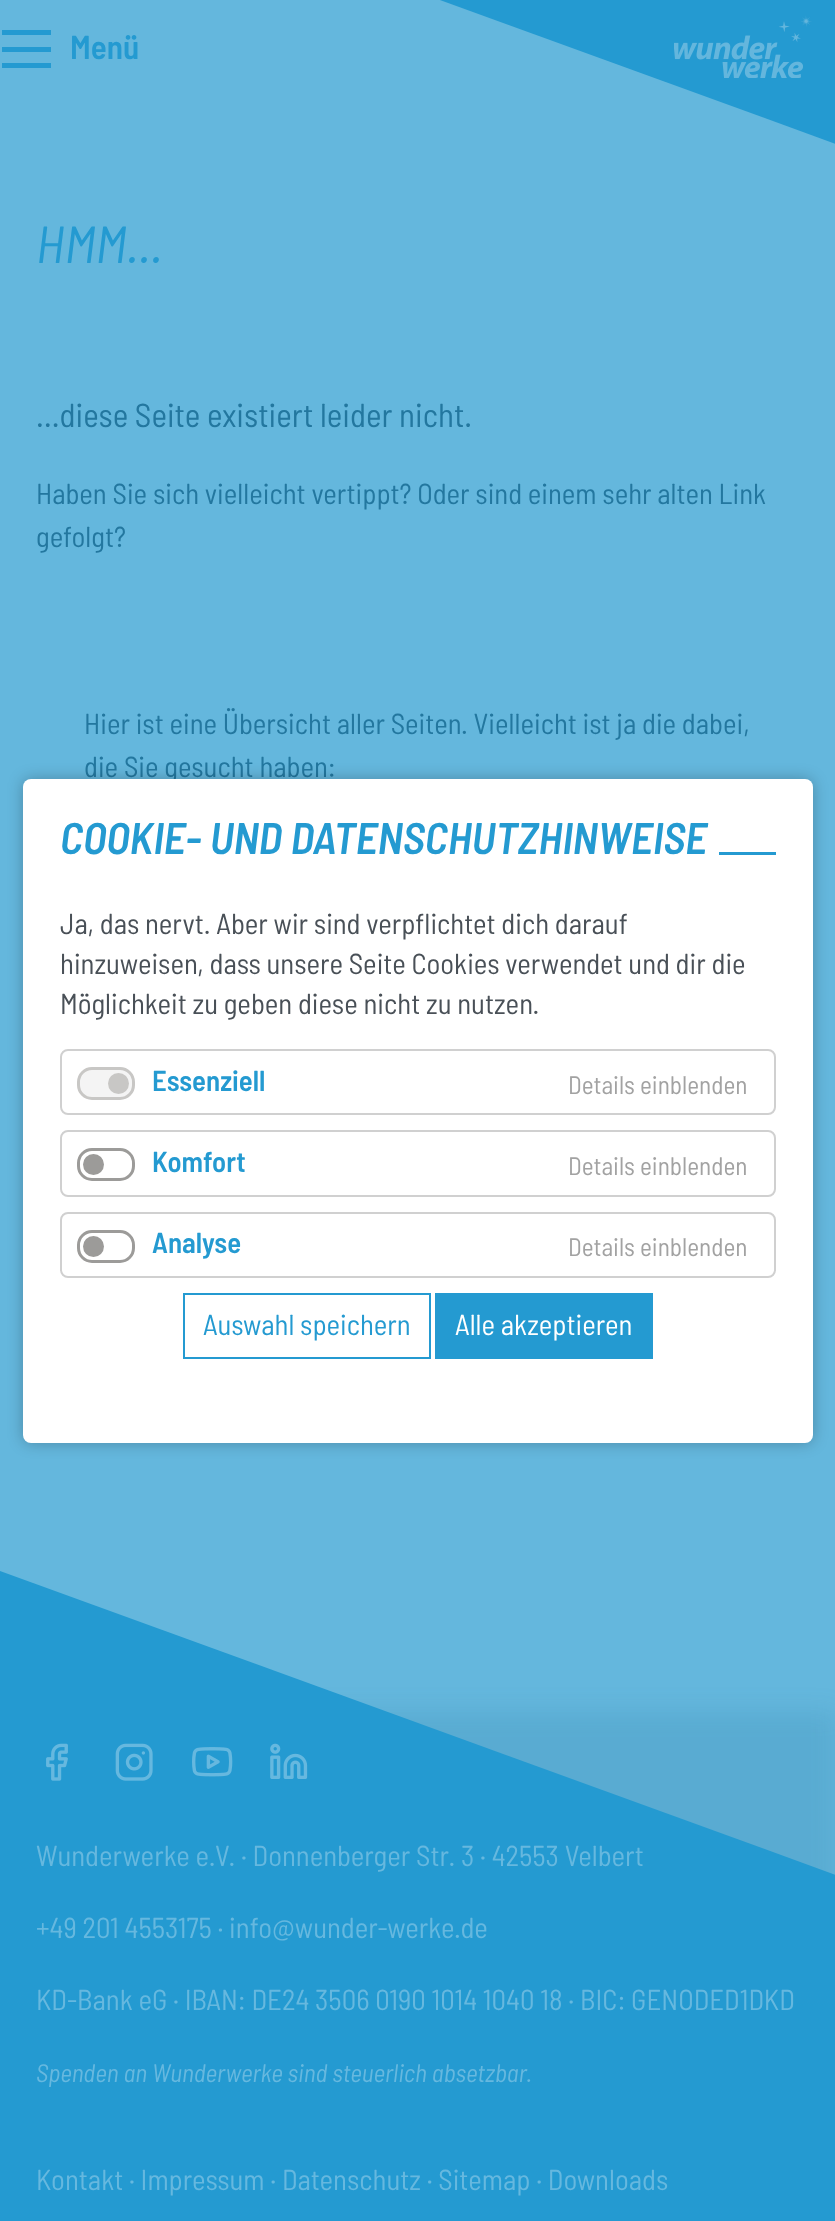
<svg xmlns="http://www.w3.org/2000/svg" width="835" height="2221">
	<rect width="100%" height="100%" fill="#64B7DD" />
	<rect x="2" y="30" width="49" height="5" fill="#249AD1" />
	<rect x="2" y="47" width="49" height="5" fill="#249AD1" />
	<rect x="2" y="63" width="49" height="5" fill="#249AD1" />
	<text x="70" y="59" font-family="Barlow Semi Condensed" font-size="33.1" font-weight="600" fill="#249AD1">Menü</text>
	<path d="M-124-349L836 0V144L-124-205Z" fill="#249AD1" />
	<image x="674" y="15" width="138" height="63" href="assets/img1.png" />
	<text x="36" y="263" font-family="Barlow Semi Condensed" font-size="52" font-style="italic" fill="#249AD1">HMM…</text>
	<text x="36" y="427" font-family="Barlow Semi Condensed" font-size="33.1" fill="#23779F">…diese Seite existiert leider nicht.</text>
	<g font-family="Barlow Semi Condensed" font-size="28.8" fill="#23779F">
		<text x="36" y="504">Haben Sie sich vielleicht vertippt? Oder sind einem sehr alten Link</text>
		<text x="36" y="547">gefolgt?</text>
		<text x="84" y="734">Hier ist eine Übersicht aller Seiten. Vielleicht ist ja die dabei,</text>
		<text x="84" y="777">die Sie gesucht haben:</text>
	</g>
	<rect x="0" y="1712" width="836" height="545" fill="#196C92" fill-opacity="0.15" filter="blur(12px)" />
	<path d="M0 1571L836 1875V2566L0 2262Z" fill="#249AD1" />
	<image x="46" y="1743" width="22" height="38" href="assets/img2.png" />
	<image x="115" y="1743" width="38" height="38" href="assets/img3.png" />
	<image x="192" y="1747" width="41" height="30" href="assets/img4.png" />
	<image x="270" y="1743" width="38" height="36" href="assets/img5.png" />
	<g font-family="Barlow Semi Condensed" font-size="28.8" fill="#66B8DF">
		<text x="36" y="1866">Wunderwerke e.V. · Donnenberger Str. 3 · 42553 Velbert</text>
		<text x="36" y="1938">+49 201 4553175 · info@wunder-werke.de</text>
		<text x="36" y="2010">KD-Bank eG · IBAN: DE24 3506 0190 1014 1040 18 · BIC: GENODED1DKD</text>
	</g>
	<text x="36" y="2082" font-family="Barlow Semi Condensed" font-size="25.25" font-style="italic" fill="#66B8DF">Spenden an Wunderwerke sind steuerlich absetzbar.</text>
	<text x="36" y="2190" font-family="Barlow Semi Condensed" font-size="28.8" fill="#66B8DF">Kontakt · Impressum · Datenschutz · Sitemap · Downloads</text>
	<rect x="23" y="779" width="790" height="664" rx="8" fill="#000000" fill-opacity="0.25" filter="blur(7.5px)" />
	<rect x="23" y="779" width="790" height="664" rx="8" fill="#FFFFFF" />
	<text x="60" y="854" font-family="Barlow Semi Condensed" font-size="44.25" font-weight="600" font-style="italic" fill="#249AD1">COOKIE- UND DATENSCHUTZHINWEISE</text>
	<rect x="719" y="852" width="57" height="3" fill="#249AD1" />
	<g font-family="Barlow Semi Condensed" font-size="28.8" fill="#495057">
		<text x="60" y="934">Ja, das nervt. Aber wir sind verpflichtet dich darauf</text>
		<text x="60" y="974">hinzuweisen, dass unsere Seite Cookies verwendet und dir die</text>
		<text x="60" y="1014">Möglichkeit zu geben diese nicht zu nutzen.</text>
	</g>
	<rect x="61" y="1050" width="714" height="64" rx="7" fill="none" stroke="#D0D0D0" stroke-width="2" />
	<rect x="78.5" y="1068.5" width="55" height="30" rx="13.5" fill="#F4F4F4" stroke="#C8C7C5" stroke-width="3" />
	<text x="152" y="1091" font-family="Barlow Semi Condensed" font-size="28.8" font-weight="600" fill="#249AD1">Essenziell</text>
	<circle cx="118.5" cy="1083.5" r="10.5" fill="#C8C7C5" />
	<text x="568" y="1094" font-family="Barlow Semi Condensed" font-size="25.25" fill="#A2A2A2">Details einblenden</text>
	<rect x="61" y="1131" width="714" height="65" rx="7" fill="none" stroke="#D0D0D0" stroke-width="2" />
	<rect x="78.5" y="1149.5" width="55" height="30" rx="13.5" fill="none" stroke="#9C9B99" stroke-width="3" />
	<text x="152" y="1172" font-family="Barlow Semi Condensed" font-size="28.8" font-weight="600" fill="#249AD1">Komfort</text>
	<circle cx="93.5" cy="1164.5" r="10.5" fill="#9C9B99" />
	<text x="568" y="1175" font-family="Barlow Semi Condensed" font-size="25.25" fill="#A2A2A2">Details einblenden</text>
	<rect x="61" y="1213" width="714" height="64" rx="7" fill="none" stroke="#D0D0D0" stroke-width="2" />
	<rect x="78.5" y="1231.5" width="55" height="30" rx="13.5" fill="none" stroke="#9C9B99" stroke-width="3" />
	<text x="152" y="1253" font-family="Barlow Semi Condensed" font-size="28.8" font-weight="600" fill="#249AD1">Analyse</text>
	<circle cx="93.5" cy="1246.5" r="10.5" fill="#9C9B99" />
	<text x="568" y="1256" font-family="Barlow Semi Condensed" font-size="25.25" fill="#A2A2A2">Details einblenden</text>
	<rect x="184" y="1294" width="246" height="64" fill="none" stroke="#249AD1" stroke-width="2" />
	<text x="203" y="1335" font-family="Barlow Semi Condensed" font-size="28.8" fill="#249AD1">Auswahl speichern</text>
	<rect x="435" y="1293" width="218" height="66" fill="#249AD1" />
	<text x="455" y="1335" font-family="Barlow Semi Condensed" font-size="28.8" fill="#FFFFFF">Alle akzeptieren</text>
</svg>
